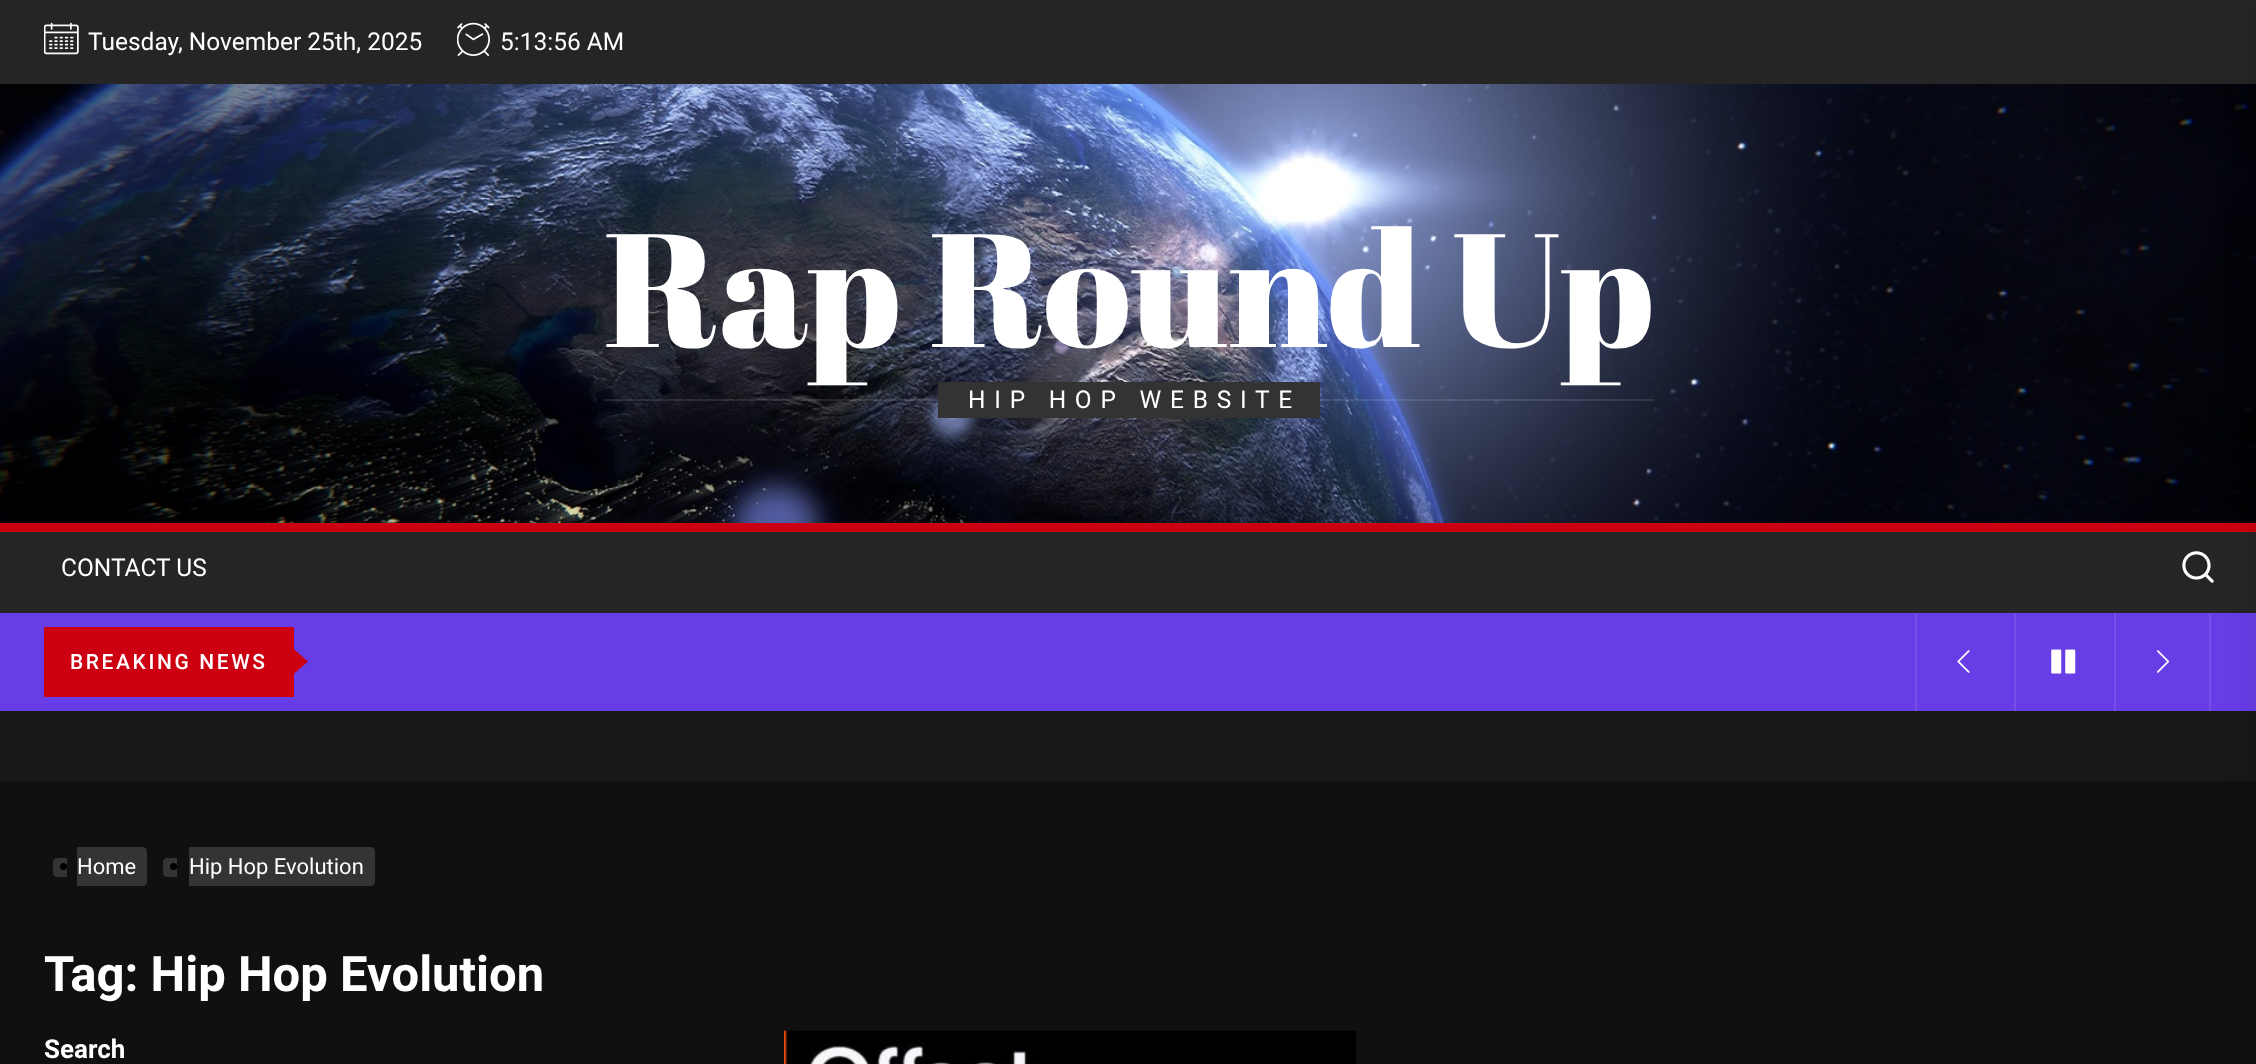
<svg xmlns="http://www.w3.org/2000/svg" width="2256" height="1064">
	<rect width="100%" height="100%" fill="#181818" />
	<rect x="0" y="0" width="2256" height="84" fill="#252525" />
	<image x="44" y="22" width="35" height="33" href="assets/img1.png" />
	<text x="88" y="50" font-family="Roboto" font-size="24.5" fill="#FFFFFF">Tuesday, November 25th, 2025</text>
	<image x="457" y="22" width="33" height="34" href="assets/img2.png" />
	<text x="500" y="50" font-family="Roboto" font-size="24.5" fill="#FFFFFF">5:13:56 AM</text>
	<image x="0" y="84" width="2256" height="439" href="assets/img3.png" />
	<text x="604" y="347" font-family="Abril Fatface" font-size="161" fill="#FFFFFF">Rap Round Up</text>
	<rect x="604" y="399" width="1050" height="2" fill="#FFFFFF" fill-opacity="0.1" />
	<rect x="938" y="382" width="382" height="36" fill="#333333" />
	<text x="968" y="408" font-family="Roboto" font-size="24.5" letter-spacing="8.75" fill="#FFFFFF">HIP HOP WEBSITE</text>
	<rect x="0" y="532" width="2256" height="81" fill="#252525" />
	<rect x="0" y="523" width="2256" height="9" fill="#CC0010" />
	<text x="61" y="576" font-family="Roboto" font-size="24.5" fill="#FFFFFF">CONTACT US</text>
	<image x="2182" y="551" width="32" height="32" href="assets/img4.png" />
	<rect x="0" y="613" width="2256" height="98" fill="#673DE6" />
	<rect x="44" y="627" width="250" height="70" fill="#CC0010" />
	<text x="70" y="669" font-family="Roboto" font-size="21" font-weight="500" letter-spacing="2.6" fill="#FFFFFF">BREAKING NEWS</text>
	<path d="M292 675.5V647.5L308 661.5Z" fill="#CC0010" />
	<rect x="1915" y="614" width="2" height="97" fill="#7650E9" />
	<image x="1957" y="650" width="13" height="23" href="assets/img5.png" />
	<rect x="2014" y="614" width="2" height="97" fill="#7650E9" />
	<image x="2051" y="649" width="25" height="25" href="assets/img6.png" />
	<rect x="2209" y="614" width="2" height="97" fill="#7650E9" />
	<rect x="2114" y="614" width="2" height="97" fill="#7650E9" />
	<image x="2157" y="650" width="13" height="23" href="assets/img7.png" />
	<rect x="0" y="781" width="2256" height="283" fill="#101010" />
	<rect x="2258" y="0" width="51" height="1064" fill="#000000" fill-opacity="0.1" filter="blur(17.5px)" />
	<path d="M57 858H67V877H57C55 877 53 875 53 873V862C53 860 55 858 57 858Z" fill="#343434" />
	<path d="M77 847H143C145 847 147 849 147 851V882C147 884 145 886 143 886H77Z" fill="#343434" />
	<circle cx="63.5" cy="866.5" r="3.5" fill="#000000" />
	<text x="77" y="874" font-family="Roboto" font-size="22" fill="#FFFFFF">Home</text>
	<path d="M167 858H177V877H167C165 877 163 875 163 873V862C163 860 165 858 167 858Z" fill="#343434" />
	<path d="M189 847H371C373 847 375 849 375 851V882C375 884 373 886 371 886H189Z" fill="#343434" />
	<circle cx="173.5" cy="866.5" r="3.5" fill="#000000" />
	<text x="189" y="874" font-family="Roboto" font-size="22" fill="#FFFFFF">Hip Hop Evolution</text>
	<text x="44" y="991" font-family="Roboto" font-size="49" font-weight="700" fill="#FFFFFF">Tag: Hip Hop Evolution</text>
	<text x="44" y="1058" font-family="Roboto" font-size="26" font-weight="700" fill="#FFFFFF">Search</text>
	<image x="784" y="1030" width="573" height="34" href="assets/img8.png" />
</svg>
